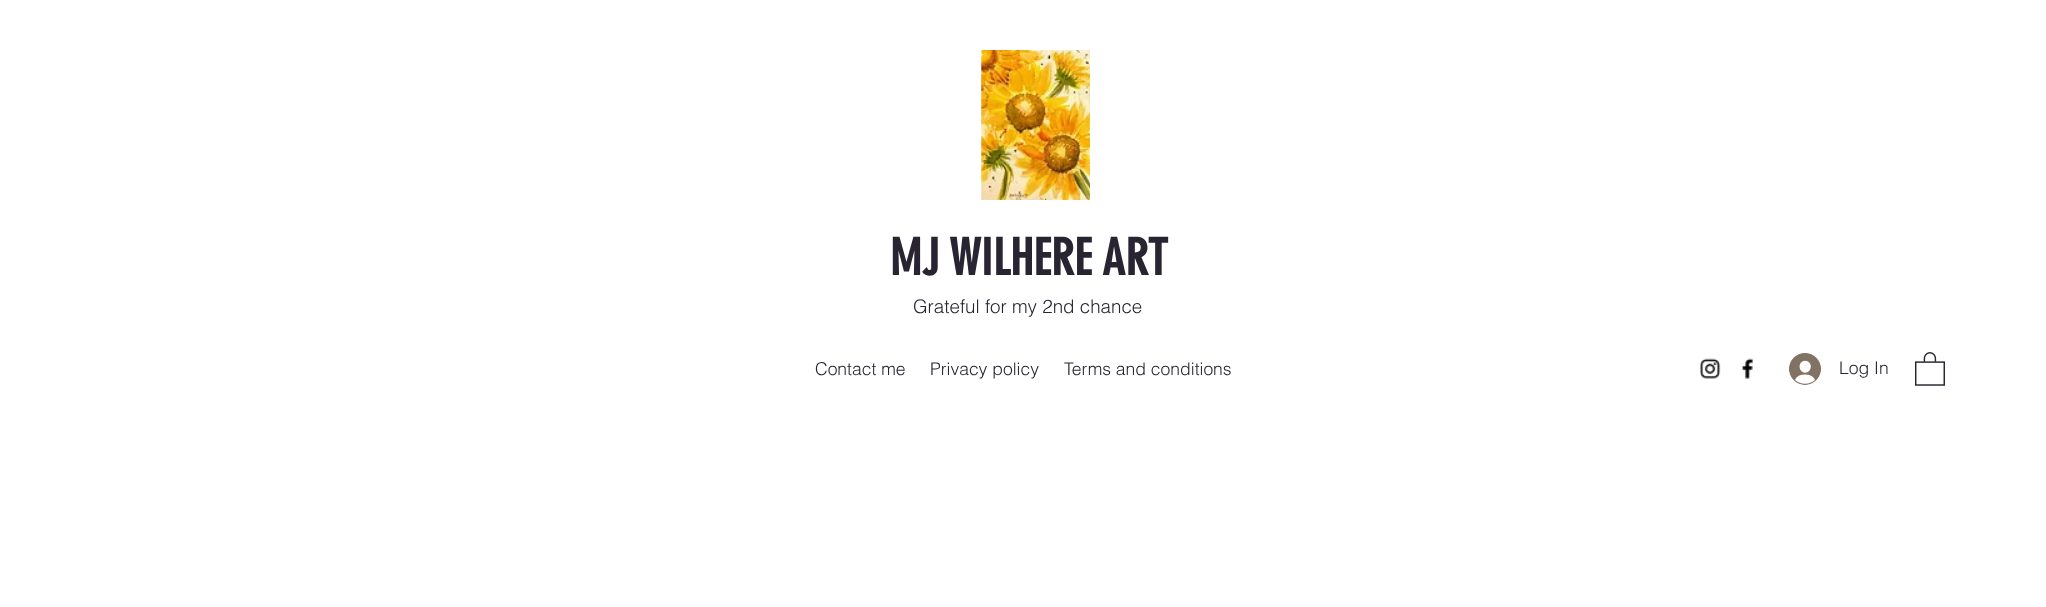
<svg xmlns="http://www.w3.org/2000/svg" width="2046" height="607">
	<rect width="100%" height="100%" fill="#FFFFFF" />
	<image x="981" y="50" width="109" height="150" href="assets/img1.png" />
	<text x="890" y="275" font-family="'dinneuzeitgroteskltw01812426'" font-size="50" font-weight="700" fill="#292431">MJ WILHERE ART</text>
	<text x="913" y="313" font-family="helvetica" font-size="18.75" font-weight="300" fill="#292431">Grateful for my 2nd chance</text>
	<g font-family="helvetica" font-size="17.5" font-weight="300" fill="#292431">
		<text x="815" y="375">Contact me</text>
		<text x="930" y="375">Privacy policy</text>
		<text x="1064" y="375">Terms and conditions</text>
	</g>
	<image x="1699" y="358" width="22" height="21" href="assets/img2.png" />
	<image x="1742" y="358" width="12" height="21" href="assets/img3.png" />
	<image x="1789" y="353" width="32" height="32" href="assets/img4.png" />
	<text x="1839" y="374" font-family="helvetica" font-size="17.5" font-weight="300" fill="#292431">Log In</text>
	<image x="1915" y="352" width="30" height="34" href="assets/img5.png" />
</svg>
